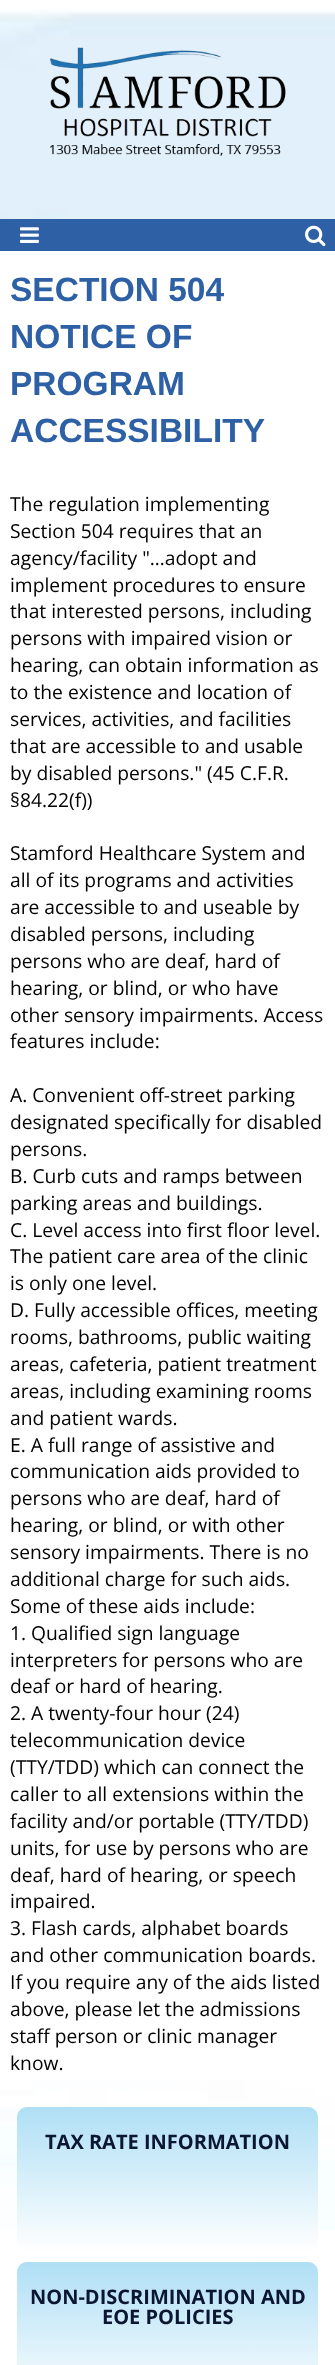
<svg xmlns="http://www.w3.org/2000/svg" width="335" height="2365">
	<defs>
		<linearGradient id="g1" gradientUnits="userSpaceOnUse" x1="168" y1="2107" x2="168" y2="2252"><stop offset="0" stop-color="#AFDFF5" /><stop offset="1" stop-color="#FFFFFF" /></linearGradient>
		<linearGradient id="g2" gradientUnits="userSpaceOnUse" x1="168" y1="2262" x2="168" y2="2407"><stop offset="0" stop-color="#AFDFF5" /><stop offset="1" stop-color="#FFFFFF" /></linearGradient>
	</defs>
	<rect width="100%" height="100%" fill="#FFFFFF" />
	<image x="0" y="9" width="335" height="2221" href="assets/img1.png" />
	<image x="50" y="47" width="236" height="109" href="assets/img2.png" />
	<rect x="0" y="219" width="335" height="32" fill="#2E60A5" />
	<image x="20" y="227" width="19" height="16" href="assets/img3.png" />
	<image x="305" y="225" width="21" height="22" href="assets/img4.png" />
	<rect x="0" y="251" width="335" height="1828" fill="#FFFFFF" />
	<g font-family="Liberation Sans" font-size="33.5" font-weight="700" fill="#2E60A5">
		<text x="10" y="301">SECTION 504</text>
		<text x="10" y="348">NOTICE OF</text>
		<text x="10" y="395">PROGRAM</text>
		<text x="10" y="442">ACCESSIBILITY</text>
	</g>
	<g font-family="Open Sans" font-size="19.25" fill="#000000">
		<text x="10" y="511">The regulation implementing</text>
		<text x="10" y="538">Section 504 requires that an</text>
		<text x="10" y="565">agency/facility "…adopt and</text>
		<text x="10" y="592">implement procedures to ensure</text>
		<text x="10" y="618">that interested persons, including</text>
		<text x="10" y="645">persons with impaired vision or</text>
		<text x="10" y="672">hearing, can obtain information as</text>
		<text x="10" y="699">to the existence and location of</text>
		<text x="10" y="726">services, activities, and facilities</text>
		<text x="10" y="753">that are accessible to and usable</text>
		<text x="10" y="780">by disabled persons." (45 C.F.R.</text>
		<text x="10" y="807">§84.22(f))</text>
		<text x="10" y="860">Stamford Healthcare System and</text>
		<text x="10" y="887">all of its programs and activities</text>
		<text x="10" y="914">are accessible to and useable by</text>
		<text x="10" y="941">disabled persons, including</text>
		<text x="10" y="968">persons who are deaf, hard of</text>
		<text x="10" y="995">hearing, or blind, or who have</text>
		<text x="10" y="1022">other sensory impairments. Access</text>
		<text x="10" y="1048">features include:</text>
		<text x="10" y="1102">A. Convenient off-street parking</text>
		<text x="10" y="1129">designated specifically for disabled</text>
		<text x="10" y="1156">persons.</text>
		<text x="10" y="1183">B. Curb cuts and ramps between</text>
		<text x="10" y="1210">parking areas and buildings.</text>
		<text x="10" y="1237">C. Level access into first floor level.</text>
		<text x="10" y="1263">The patient care area of the clinic</text>
		<text x="10" y="1290">is only one level.</text>
		<text x="10" y="1317">D. Fully accessible offices, meeting</text>
		<text x="10" y="1344">rooms, bathrooms, public waiting</text>
		<text x="10" y="1371">areas, cafeteria, patient treatment</text>
		<text x="10" y="1398">areas, including examining rooms</text>
		<text x="10" y="1425">and patient wards.</text>
		<text x="10" y="1452">E. A full range of assistive and</text>
		<text x="10" y="1478">communication aids provided to</text>
		<text x="10" y="1505">persons who are deaf, hard of</text>
		<text x="10" y="1532">hearing, or blind, or with other</text>
		<text x="10" y="1559">sensory impairments. There is no</text>
		<text x="10" y="1586">additional charge for such aids.</text>
		<text x="10" y="1613">Some of these aids include:</text>
		<text x="10" y="1640">1. Qualified sign language</text>
		<text x="10" y="1667">interpreters for persons who are</text>
		<text x="10" y="1693">deaf or hard of hearing.</text>
		<text x="10" y="1720">2. A twenty-four hour (24)</text>
		<text x="10" y="1747">telecommunication device</text>
		<text x="10" y="1774">(TTY/TDD) which can connect the</text>
		<text x="10" y="1801">caller to all extensions within the</text>
		<text x="10" y="1828">facility and/or portable (TTY/TDD)</text>
		<text x="10" y="1855">units, for use by persons who are</text>
		<text x="10" y="1882">deaf, hard of hearing, or speech</text>
		<text x="10" y="1908">impaired.</text>
		<text x="10" y="1935">3. Flash cards, alphabet boards</text>
		<text x="10" y="1962">and other communication boards.</text>
		<text x="10" y="1989">If you require any of the aids listed</text>
		<text x="10" y="2016">above, please let the admissions</text>
		<text x="10" y="2043">staff person or clinic manager</text>
		<text x="10" y="2070">know.</text>
	</g>
	<path d="M27 2107H308C313.5 2107 318 2111.5 318 2117V2252H17V2117C17 2111.5 21.5 2107 27 2107Z" fill="url(#g1)" />
	<text x="45" y="2149" font-family="Open Sans" font-size="20" font-weight="700" fill="#0B1632">TAX RATE INFORMATION</text>
	<path d="M27 2262H308C313.5 2262 318 2266.5 318 2272V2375H17V2272C17 2266.5 21.5 2262 27 2262Z" fill="url(#g2)" />
	<g font-family="Open Sans" font-size="20" font-weight="700" fill="#0B1632">
		<text x="30" y="2304">NON-DISCRIMINATION AND</text>
		<text x="102" y="2324">EOE POLICIES</text>
	</g>
</svg>
